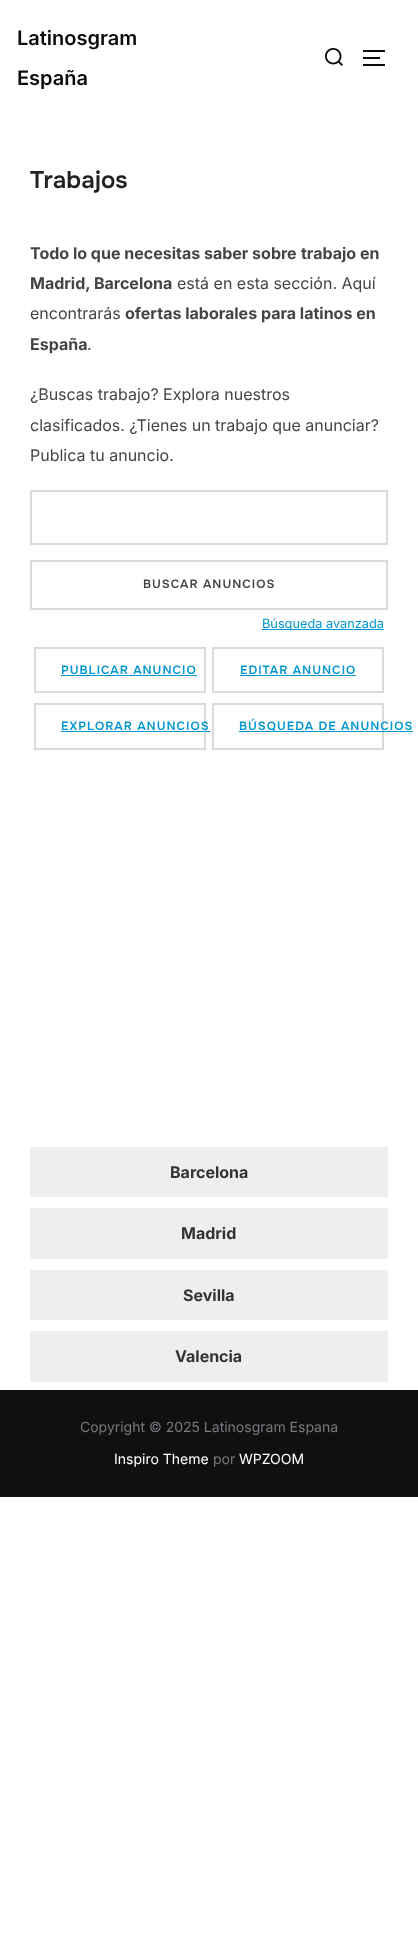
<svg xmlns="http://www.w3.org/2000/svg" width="418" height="1955">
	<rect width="100%" height="100%" fill="#FFFFFF" />
	<g font-family="Inter" font-size="20" font-weight="600" fill="#0A0A0A">
		<text x="17" y="45">Latinosgram</text>
		<text x="17" y="85">España</text>
	</g>
	<image x="325" y="48" width="18" height="18" href="assets/img1.png" />
	<rect x="363" y="50" width="22" height="2" fill="#0A0A0A" />
	<rect x="363" y="57" width="17" height="2" fill="#0A0A0A" />
	<rect x="363" y="64" width="22" height="2" fill="#0A0A0A" />
	<text x="30" y="188" font-family="Onest" font-size="24" font-weight="600" fill="#222222">Trabajos</text>
	<g font-family="Inter" font-size="16" font-weight="700" fill="#444444">
		<text x="30" y="259">Todo lo que necesitas saber sobre</text>
		<text x="301" y="259">trabajo en</text>
		<text x="30" y="289">Madrid, Barcelona</text>
	</g>
	<g font-family="Inter" font-size="16" fill="#444444">
		<text x="177" y="289">está en esta sección. Aquí</text>
		<text x="30" y="319">encontrarás</text>
	</g>
	<g font-family="Inter" font-size="16" font-weight="700" fill="#444444">
		<text x="125" y="319">ofertas laborales para latinos en</text>
		<text x="30" y="350">España</text>
	</g>
	<g font-family="Inter" font-size="16" fill="#444444">
		<text x="87" y="350">.</text>
		<text x="30" y="400">¿Buscas trabajo? Explora nuestros</text>
		<text x="30" y="431">clasificados. ¿Tienes un trabajo que anunciar?</text>
		<text x="30" y="461">Publica tu anuncio.</text>
	</g>
	<rect x="31" y="491" width="356" height="53" fill="none" stroke="#DBDBDB" stroke-width="2" />
	<rect x="31" y="561" width="356" height="48" fill="none" stroke="#DBDBDB" stroke-width="2" />
	<text x="143" y="588" font-family="Onest" font-size="12" font-weight="600" letter-spacing="1" fill="#444444">BUSCAR ANUNCIOS</text>
	<rect x="262" y="629" width="122" height="1" fill="#0096D1" />
	<text x="262" y="628" font-family="Inter" font-size="12.75" fill="#0096D1">Búsqueda avanzada</text>
	<rect x="35" y="648" width="170" height="44" fill="none" stroke="#DBDBDB" stroke-width="2" />
	<text x="61" y="674" font-family="Onest" font-size="12" font-weight="600" letter-spacing="1" fill="#0096D1">PUBLICAR ANUNCIO</text>
	<rect x="61" y="675" width="136" height="1" fill="#0096D1" />
	<rect x="213" y="648" width="170" height="44" fill="none" stroke="#DBDBDB" stroke-width="2" />
	<text x="240" y="674" font-family="Onest" font-size="12" font-weight="600" letter-spacing="1" fill="#0096D1">EDITAR ANUNCIO</text>
	<rect x="240" y="675" width="116" height="1" fill="#0096D1" />
	<rect x="35" y="704" width="170" height="45" fill="none" stroke="#DBDBDB" stroke-width="2" />
	<text x="61" y="730" font-family="Onest" font-size="12" font-weight="600" letter-spacing="1" fill="#0096D1">EXPLORAR ANUNCIOS</text>
	<rect x="61" y="731" width="149" height="1" fill="#0096D1" />
	<rect x="213" y="704" width="170" height="45" fill="none" stroke="#DBDBDB" stroke-width="2" />
	<rect x="239" y="731" width="174" height="1" fill="#0096D1" />
	<text x="239" y="730" font-family="Onest" font-size="12" font-weight="600" letter-spacing="1" fill="#0096D1">BÚSQUEDA DE ANUNCIOS</text>
	<rect x="30" y="1147" width="358" height="50" fill="#EEEEEE" />
	<text x="170" y="1178" font-family="Inter" font-size="16" font-weight="700" fill="#333333">Barcelona</text>
	<rect x="30" y="1208" width="358" height="51" fill="#EEEEEE" />
	<text x="181" y="1239" font-family="Inter" font-size="16" font-weight="700" fill="#333333">Madrid</text>
	<rect x="30" y="1270" width="358" height="50" fill="#EEEEEE" />
	<text x="183" y="1301" font-family="Inter" font-size="16" font-weight="700" fill="#333333">Sevilla</text>
	<rect x="30" y="1331" width="358" height="51" fill="#EEEEEE" />
	<text x="175" y="1362" font-family="Inter" font-size="16" font-weight="700" fill="#333333">Valencia</text>
	<rect x="0" y="1390" width="418" height="107" fill="#101010" />
	<text x="80" y="1432" font-family="Inter" font-size="14" fill="#78787F">Copyright © 2025 Latinosgram Espana</text>
	<text x="114" y="1464" font-family="Inter" font-size="14" fill="#FFFFFF">Inspiro Theme</text>
	<text x="213" y="1464" font-family="Inter" font-size="14" fill="#78787F">por</text>
	<text x="239" y="1464" font-family="Inter" font-size="14" fill="#FFFFFF">WPZOOM</text>
</svg>
